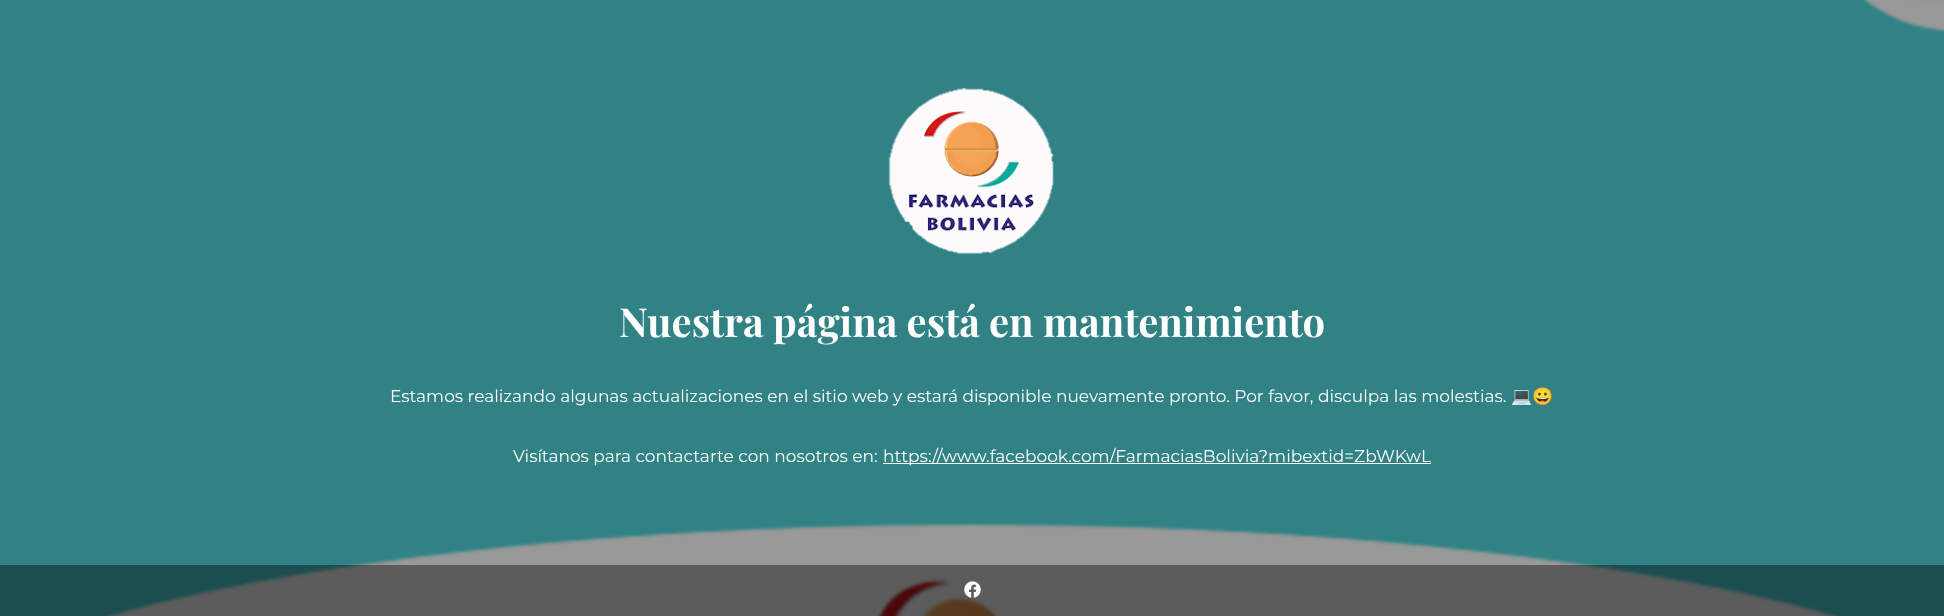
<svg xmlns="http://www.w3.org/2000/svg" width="1944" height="616">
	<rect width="100%" height="100%" fill="#FFFFFF" />
	<image x="0" y="0" width="1944" height="616" href="assets/img1.png" />
	<image x="888" y="88" width="166" height="167" href="assets/img2.png" />
	<text x="619" y="337" font-family="Playfair Display" font-size="40" font-weight="700" fill="#FFFFFF">Nuestra página está en mantenimiento</text>
	<text x="390" y="402" font-family="Montserrat" font-size="17" fill="#FFFFFF">Estamos realizando algunas actualizaciones en el sitio web y estará disponible nuevamente pronto. Por favor, disculpa las molestias.</text>
	<text x="1511" y="402" font-family="Noto Color Emoji" font-size="17" fill="#FFFFFF">💻😀</text>
	<text x="513" y="462" font-family="Montserrat" font-size="17" fill="#FFFFFF">Visítanos para contactarte con nosotros en:</text>
	<rect x="883" y="463" width="548" height="1" fill="#FFFFFF" />
	<text x="883" y="462" font-family="Montserrat" font-size="17" fill="#FFFFFF">https://www.facebook.com/FarmaciasBolivia?mibextid=ZbWKwL</text>
	<rect x="0" y="565" width="1944" height="51" fill="#000000" fill-opacity="0.4" />
	<image x="964" y="581" width="17" height="17" href="assets/img3.png" />
</svg>
